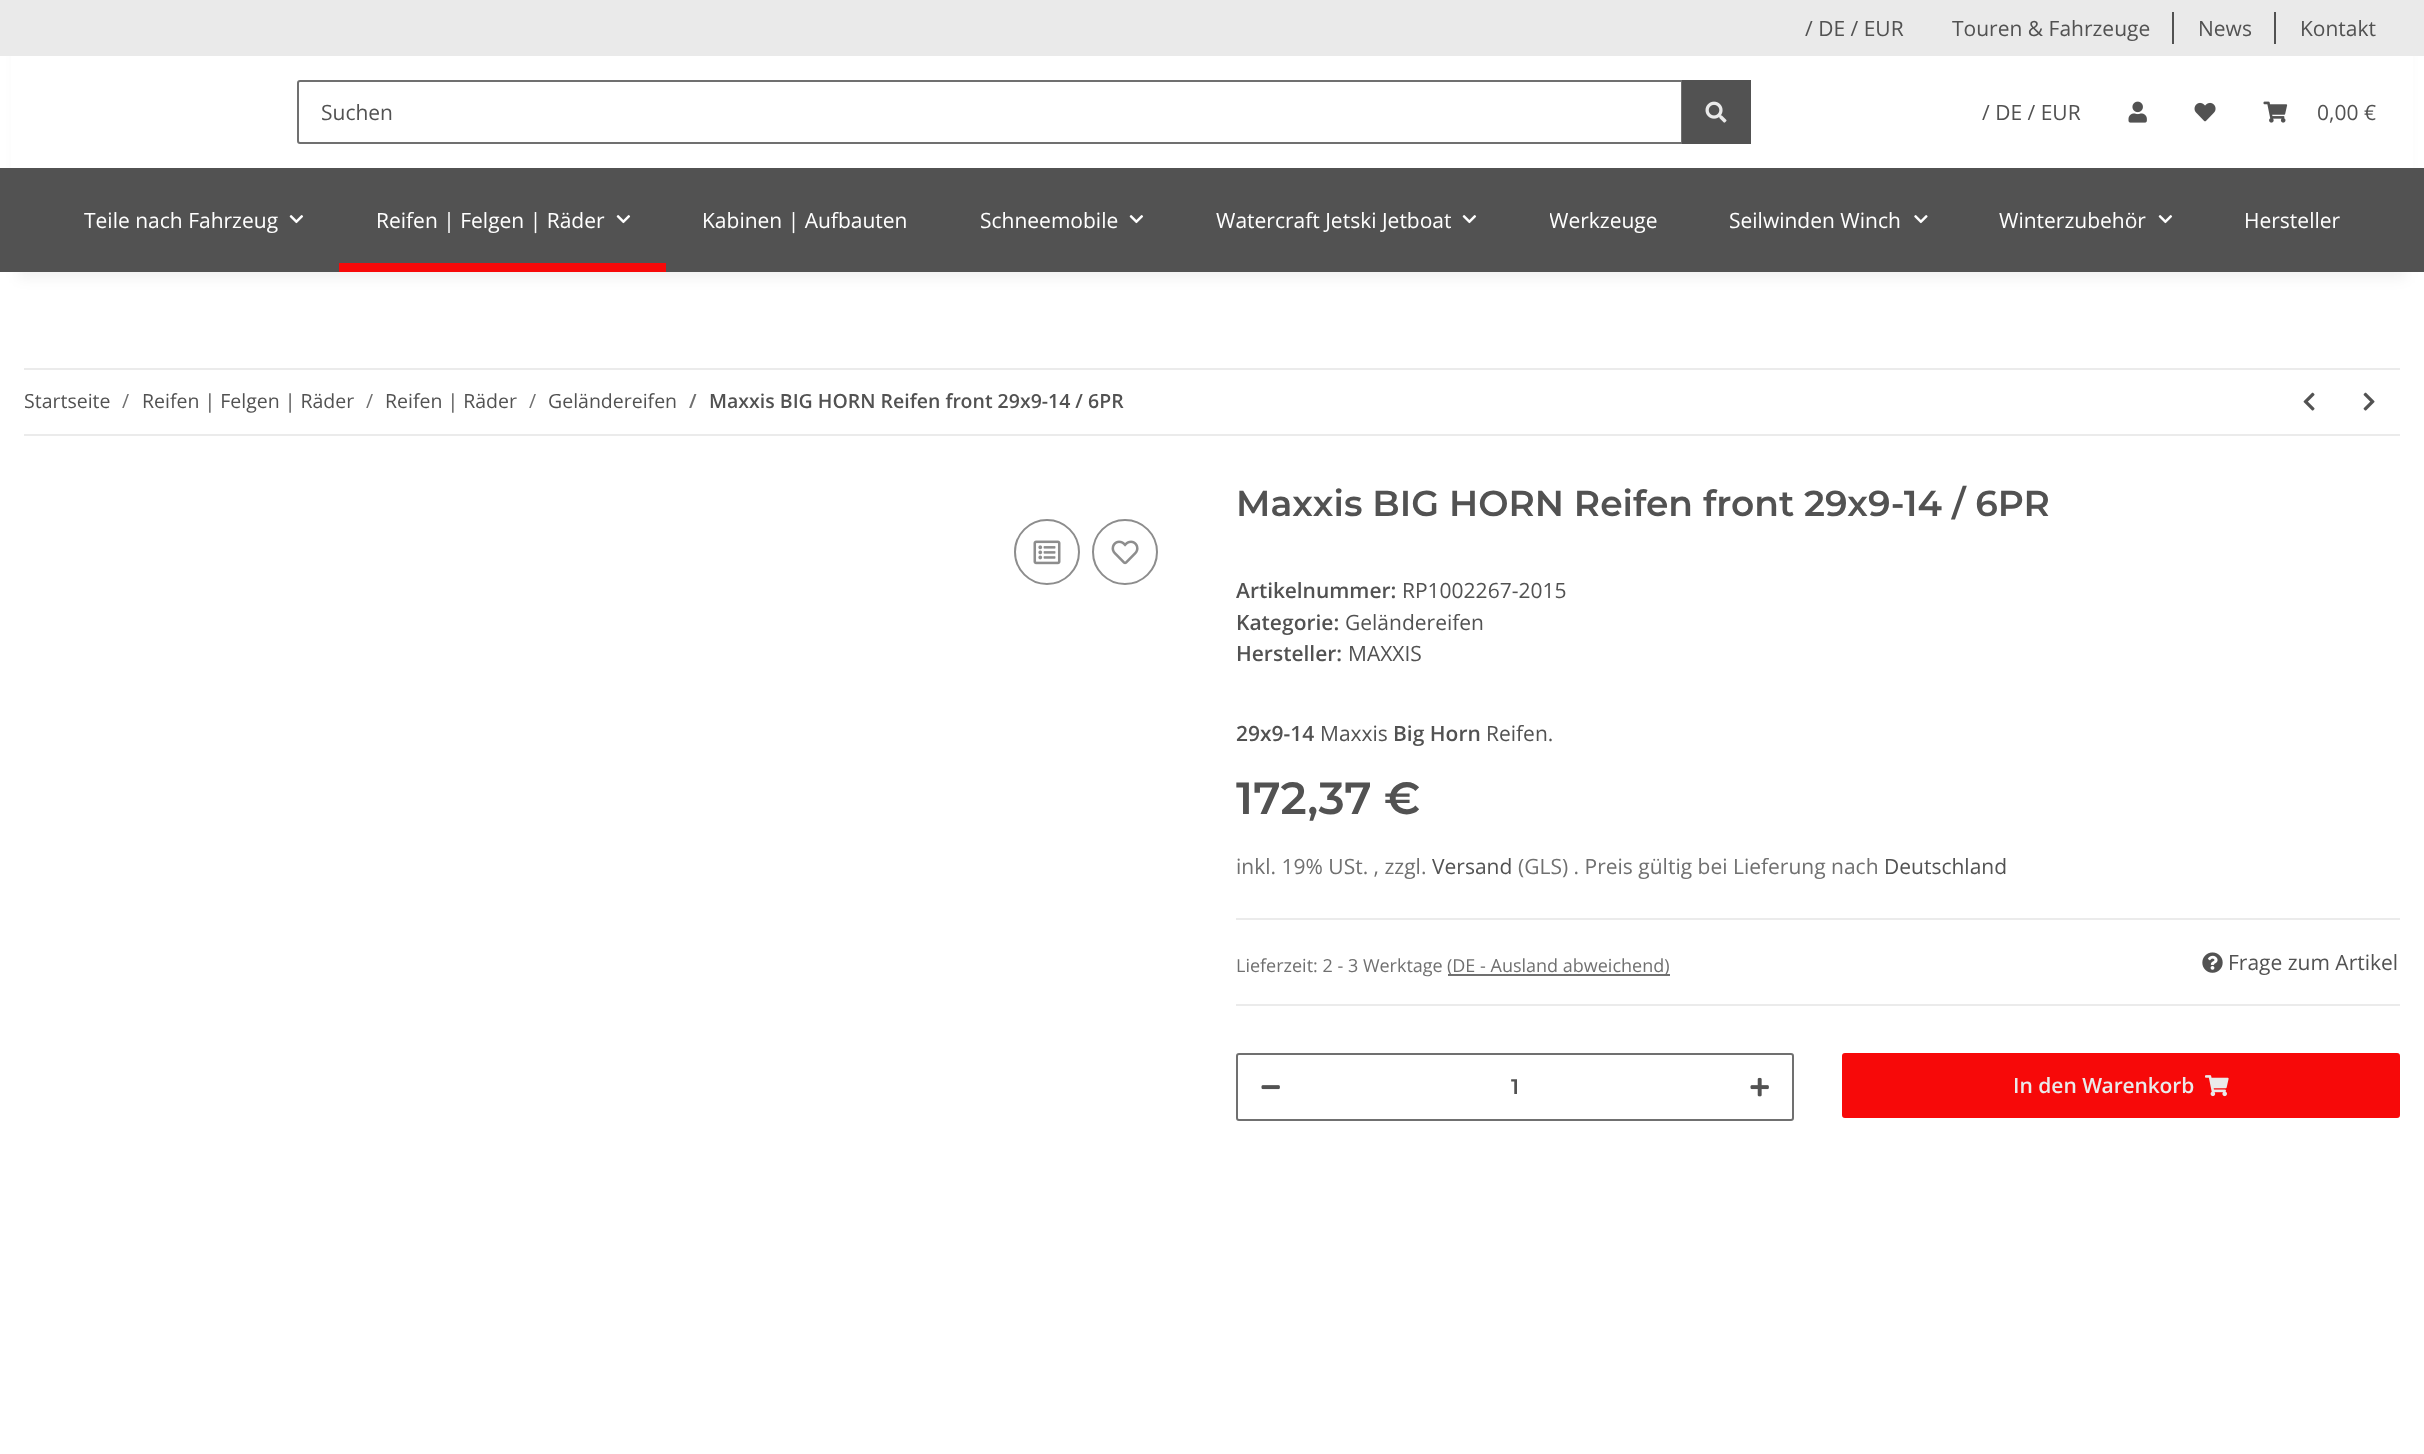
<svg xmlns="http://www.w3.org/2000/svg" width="2424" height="1454">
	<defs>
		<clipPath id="clip1"><rect x="1550" y="204" width="108" height="32" /></clipPath>
	</defs>
	<rect width="100%" height="100%" fill="#FFFFFF" />
	<rect x="18" y="42" width="2388" height="236" fill="#000000" fill-opacity="0.06" filter="blur(7px)" />
	<rect x="11" y="56" width="2402" height="112" fill="#FFFFFF" />
	<rect x="0" y="0" width="2424" height="56" fill="#EAEAEA" />
	<g font-family="Open Sans" font-size="21" fill="#525252">
		<text x="1805" y="36">/ DE / EUR</text>
		<text x="1952" y="36">Touren &amp; Fahrzeuge</text>
	</g>
	<rect x="2172" y="12" width="2" height="32" fill="#525252" />
	<text x="2198" y="36" font-family="Open Sans" font-size="21" fill="#525252">News</text>
	<rect x="2274" y="12" width="2" height="32" fill="#525252" />
	<text x="2300" y="36" font-family="Open Sans" font-size="21" fill="#525252">Kontakt</text>
	<path d="M300 81H1682V143H300C299 143 298 142 298 141V83C298 82 299 81 300 81Z" fill="none" stroke="#707070" stroke-width="2" />
	<text x="321" y="120" font-family="Open Sans" font-size="21" fill="#525252">Suchen</text>
	<rect x="1682" y="80" width="69" height="64" fill="#525252" />
	<image x="1705" y="101" width="22" height="22" href="assets/img1.png" />
	<text x="1982" y="120" font-family="Open Sans" font-size="21" fill="#525252">/ DE / EUR</text>
	<image x="2128" y="101" width="19" height="22" href="assets/img2.png" />
	<image x="2194" y="102" width="22" height="20" href="assets/img3.png" />
	<image x="2263" y="101" width="25" height="22" href="assets/img4.png" />
	<text x="2317" y="120" font-family="Open Sans" font-size="21" fill="#525252">0,00 €</text>
	<rect x="0" y="168" width="2424" height="104" fill="#525252" />
	<text x="84" y="228" font-family="Open Sans" font-size="21" fill="#FFFFFF">Teile nach Fahrzeug</text>
	<image x="289" y="215" width="15" height="9" href="assets/img5.png" />
	<text x="376" y="228" font-family="Open Sans" font-size="21" fill="#FFFFFF">Reifen | Felgen | Räder</text>
	<image x="616" y="215" width="15" height="9" href="assets/img5.png" />
	<rect x="339" y="263" width="327" height="9" fill="#F70909" />
	<g font-family="Open Sans" font-size="21" fill="#FFFFFF">
		<text x="702" y="228">Kabinen | Aufbauten</text>
		<text x="980" y="228">Schneemobile</text>
	</g>
	<image x="1129" y="215" width="15" height="9" href="assets/img5.png" />
	<text x="1216" y="228" font-family="Open Sans" font-size="21" fill="#FFFFFF">Watercraft Jetski Jetboat</text>
	<image x="1462" y="215" width="15" height="9" href="assets/img5.png" />
	<g clip-path="url(#clip1)">
		<text x="1549" y="228" font-family="Open Sans" font-size="21" fill="#FFFFFF">Werkzeuge</text>
	</g>
	<text x="1729" y="228" font-family="Open Sans" font-size="21" fill="#FFFFFF">Seilwinden Winch</text>
	<image x="1914" y="215" width="14" height="9" href="assets/img6.png" />
	<text x="1999" y="228" font-family="Open Sans" font-size="21" fill="#FFFFFF">Winterzubehör</text>
	<image x="2158" y="215" width="15" height="9" href="assets/img5.png" />
	<text x="2244" y="228" font-family="Open Sans" font-size="21" fill="#FFFFFF">Hersteller</text>
	<rect x="24" y="368" width="2376" height="2" fill="#EBEBEB" />
	<rect x="24" y="434" width="2376" height="2" fill="#EBEBEB" />
	<text x="24" y="408" font-family="Open Sans" font-size="19.5" fill="#525252">Startseite</text>
	<text x="122" y="408" font-family="Open Sans" font-size="19.5" fill="#707070">/</text>
	<text x="142" y="408" font-family="Open Sans" font-size="19.5" fill="#525252">Reifen | Felgen | Räder</text>
	<text x="366" y="408" font-family="Open Sans" font-size="19.5" fill="#707070">/</text>
	<text x="385" y="408" font-family="Open Sans" font-size="19.5" fill="#525252">Reifen | Räder</text>
	<text x="529" y="408" font-family="Open Sans" font-size="19.5" fill="#707070">/</text>
	<text x="548" y="408" font-family="Open Sans" font-size="19.5" fill="#525252">Geländereifen</text>
	<text x="689" y="408" font-family="Open Sans" font-size="19.5" font-weight="600" fill="#707070">/</text>
	<text x="709" y="408" font-family="Open Sans" font-size="19.5" font-weight="600" fill="#525252">Maxxis BIG HORN Reifen front 29x9-14 / 6PR</text>
	<image x="2303" y="392" width="12" height="19" href="assets/img7.png" />
	<image x="2363" y="392" width="12" height="19" href="assets/img8.png" />
	<circle cx="1047" cy="552" r="32" fill="none" stroke="#8D8D8D" stroke-width="2" />
	<image x="1033" y="540" width="28" height="25" href="assets/img9.png" />
	<circle cx="1125" cy="552" r="32" fill="none" stroke="#8D8D8D" stroke-width="2" />
	<image x="1111" y="540" width="28" height="25" href="assets/img10.png" />
	<text x="1236" y="516" font-family="Montserrat" font-size="36" font-weight="600" fill="#525252">Maxxis BIG HORN Reifen front 29x9-14 / 6PR</text>
	<text x="1236" y="598" font-family="Open Sans" font-size="21" font-weight="600" fill="#525252">Artikelnummer:</text>
	<text x="1402" y="598" font-family="Open Sans" font-size="21" fill="#525252">RP1002267-2015</text>
	<text x="1236" y="630" font-family="Open Sans" font-size="21" font-weight="600" fill="#525252">Kategorie:</text>
	<text x="1345" y="630" font-family="Open Sans" font-size="21" fill="#525252">Geländereifen</text>
	<text x="1236" y="661" font-family="Open Sans" font-size="21" font-weight="600" fill="#525252">Hersteller:</text>
	<text x="1348" y="661" font-family="Open Sans" font-size="21" fill="#525252">MAXXIS</text>
	<text x="1236" y="741" font-family="Open Sans" font-size="21" font-weight="600" fill="#525252">29x9-14</text>
	<text x="1320" y="741" font-family="Open Sans" font-size="21" fill="#525252">Maxxis</text>
	<text x="1393" y="741" font-family="Open Sans" font-size="21" font-weight="600" fill="#525252">Big Horn</text>
	<text x="1486" y="741" font-family="Open Sans" font-size="21" fill="#525252">Reifen.</text>
	<text x="1236" y="814" font-family="Montserrat" font-size="45" font-weight="600" fill="#525252">172,37 €</text>
	<text x="1236" y="874" font-family="Open Sans" font-size="21" fill="#707070">inkl. 19% USt. , zzgl.</text>
	<text x="1432" y="874" font-family="Open Sans" font-size="21" fill="#525252">Versand</text>
	<text x="1518" y="874" font-family="Open Sans" font-size="21" fill="#707070">(GLS) . Preis gültig bei Lieferung nach</text>
	<text x="1884" y="874" font-family="Open Sans" font-size="21" fill="#525252">Deutschland</text>
	<rect x="1236" y="918" width="1164" height="2" fill="#EBEBEB" />
	<rect x="1236" y="1004" width="1164" height="2" fill="#EBEBEB" />
	<text x="1236" y="972" font-family="Open Sans" font-size="18" fill="#707070">Lieferzeit: 2 - 3 Werktage</text>
	<rect x="1448" y="974" width="222" height="2" fill="#707070" />
	<text x="1447" y="972" font-family="Open Sans" font-size="18" fill="#707070">(DE - Ausland abweichend)</text>
	<image x="2202" y="952" width="21" height="21" href="assets/img11.png" />
	<text x="2228" y="970" font-family="Open Sans" font-size="21" fill="#525252">Frage zum Artikel</text>
	<rect x="1237" y="1054" width="556" height="66" rx="2" fill="none" stroke="#707070" stroke-width="2" />
	<image x="1261" y="1085" width="19" height="5" href="assets/img12.png" />
	<text x="1511" y="1094" font-family="Montserrat" font-size="21" font-weight="600" fill="#525252">1</text>
	<image x="1750" y="1077" width="19" height="20" href="assets/img13.png" />
	<rect x="1843" y="1054" width="556" height="63" rx="2" fill="#F70909" stroke="#F70909" stroke-width="2" />
	<text x="2013" y="1093" font-family="Open Sans" font-size="21" font-weight="600" fill="#EAEAEA">In den Warenkorb</text>
	<image x="2205" y="1075" width="24" height="22" href="assets/img14.png" />
</svg>
